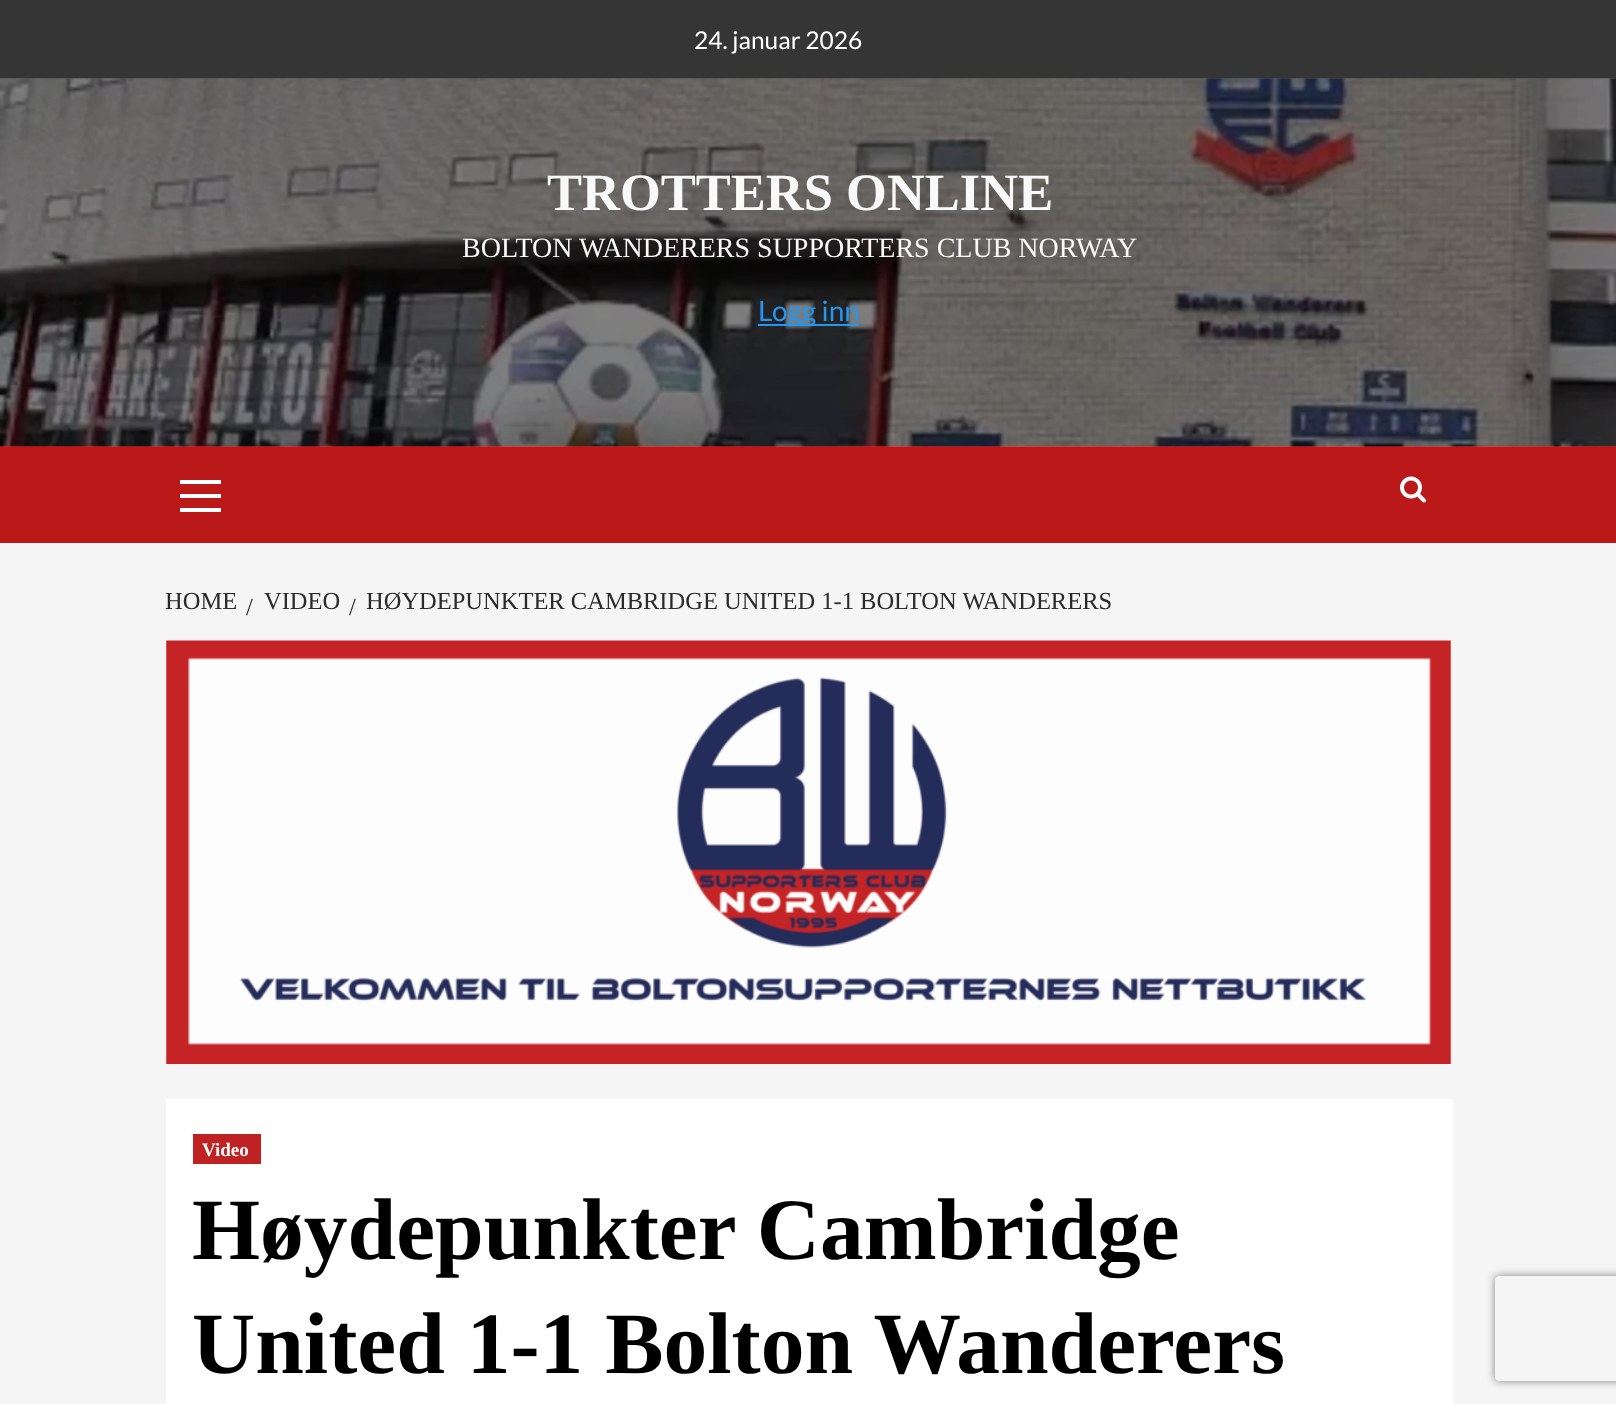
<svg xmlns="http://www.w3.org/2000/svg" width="1616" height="1404">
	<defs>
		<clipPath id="clip1"><path d="M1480 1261H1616V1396H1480ZM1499 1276H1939C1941 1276 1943 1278 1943 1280V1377C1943 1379 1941 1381 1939 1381H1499C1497 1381 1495 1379 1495 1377V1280C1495 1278 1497 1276 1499 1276Z" clip-rule="evenodd" /></clipPath>
	</defs>
	<rect width="100%" height="100%" fill="#F5F5F5" />
	<rect x="0" y="0" width="1616" height="79" fill="#353535" />
	<text x="694" y="49" font-family="Lato" font-size="24.5" fill="#FFFFFF">24. januar 2026</text>
	<rect x="0" y="446" width="1616" height="97" fill="#BB1919" />
	<image x="0" y="78" width="1616" height="369" href="assets/img1.png" />
	<text x="547" y="210" font-family="Liberation Serif" font-size="52.5" font-weight="700" fill="#F9F9F9">TROTTERS ONLINE</text>
	<text x="462" y="257" font-family="Liberation Serif" font-size="28" fill="#F9F9F9">BOLTON WANDERERS SUPPORTERS CLUB NORWAY</text>
	<rect x="758" y="324" width="101" height="2" fill="#2196F3" />
	<text x="758" y="321" font-family="Lato" font-size="28" fill="#2196F3">Logg inn</text>
	<rect x="180" y="494" width="41" height="4" fill="#FFFFFF" />
	<rect x="180" y="480" width="41" height="4" fill="#FFFFFF" />
	<rect x="180" y="508" width="41" height="4" fill="#FFFFFF" />
	<image x="1400" y="476" width="26" height="27" href="assets/img2.png" />
	<g font-family="Liberation Serif" font-size="24.5" fill="#2A2A2A">
		<text x="165" y="609">HOME</text>
		<text x="246" y="615">/</text>
		<text x="264" y="609">VIDEO</text>
		<text x="349" y="615">/</text>
		<text x="366" y="609">HØYDEPUNKTER CAMBRIDGE UNITED 1-1 BOLTON WANDERERS</text>
	</g>
	<image x="166" y="640" width="1285" height="424" href="assets/img3.png" />
	<rect x="166" y="1099" width="1287" height="305" fill="#FFFFFF" />
	<rect x="193" y="1134" width="68" height="30" fill="#BE2222" />
	<text x="202" y="1156" font-family="Liberation Serif" font-size="19" font-weight="700" fill="#FFFFFF">Video</text>
	<g font-family="Liberation Serif" font-size="87.5" font-weight="700" fill="#000000">
		<text x="192" y="1259">Høydepunkter Cambridge</text>
		<text x="192" y="1373">United 1-1 Bolton Wanderers</text>
	</g>
	<g clip-path="url(#clip1)">
		<rect x="1495" y="1276" width="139" height="105" rx="4" fill="#808080" filter="blur(4.5px)" />
	</g>
</svg>
